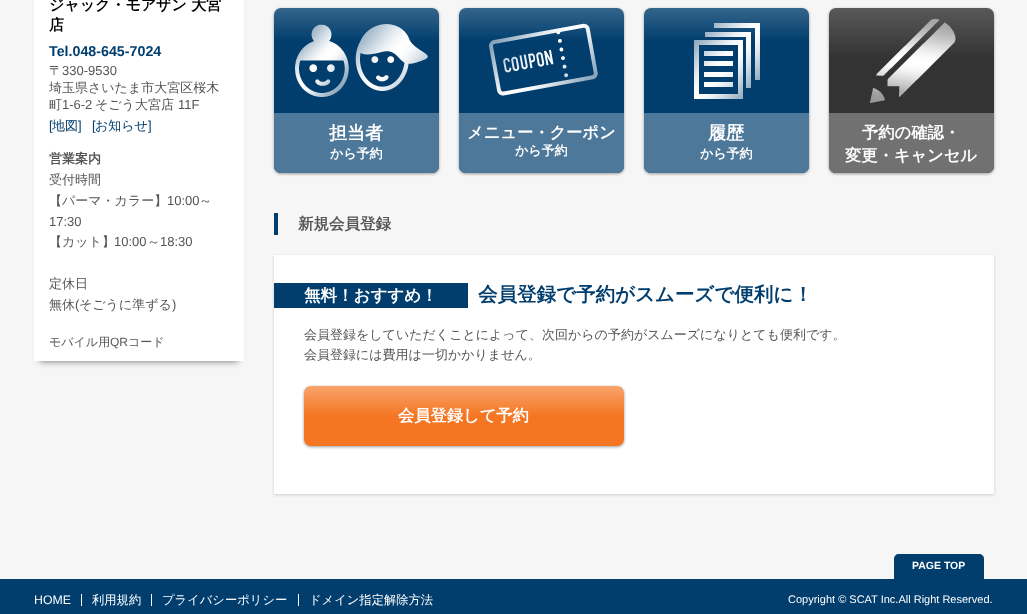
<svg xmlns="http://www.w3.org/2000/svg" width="1027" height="614">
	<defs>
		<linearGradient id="g1" gradientUnits="userSpaceOnUse" x1="357" y1="8" x2="357" y2="173"><stop offset="0" stop-color="#34658B" /><stop offset="0.2" stop-color="#013E6E" /></linearGradient>
		<linearGradient id="g2" gradientUnits="userSpaceOnUse" x1="542" y1="8" x2="542" y2="173"><stop offset="0" stop-color="#34658B" /><stop offset="0.2" stop-color="#013E6E" /></linearGradient>
		<linearGradient id="g3" gradientUnits="userSpaceOnUse" x1="727" y1="8" x2="727" y2="173"><stop offset="0" stop-color="#34658B" /><stop offset="0.2" stop-color="#013E6E" /></linearGradient>
		<linearGradient id="g4" gradientUnits="userSpaceOnUse" x1="912" y1="8" x2="912" y2="173"><stop offset="0" stop-color="#595959" /><stop offset="0.3" stop-color="#333333" /></linearGradient>
		<linearGradient id="g5" gradientUnits="userSpaceOnUse" x1="464" y1="386" x2="464" y2="446"><stop offset="0" stop-color="#F8A46C" /><stop offset="0.5" stop-color="#F57622" /></linearGradient>
	</defs>
	<rect width="100%" height="100%" fill="#F6F6F6" />
	<rect x="40" y="-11" width="198" height="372" fill="#666666" filter="blur(3.5px)" />
	<rect x="34" y="0" width="210" height="361" fill="#FFFFFF" />
	<g font-family="WenQuanYi Zen Hei" font-size="15" font-weight="700" fill="#000000">
		<text x="49" y="10">ジャック・モアザン 大宮</text>
		<text x="49" y="30">店</text>
	</g>
	<text x="49" y="56" font-family="Liberation Sans" font-size="14.25" font-weight="700" fill="#013E6E">Tel.048-645-7024</text>
	<text x="49" y="75" font-family="WenQuanYi Zen Hei" font-size="13" font-weight="500" fill="#555555">〒</text>
	<text x="62" y="75" font-family="Liberation Sans" font-size="13" fill="#555555">330-9530</text>
	<g font-family="WenQuanYi Zen Hei" font-size="13" font-weight="500" fill="#555555">
		<text x="49" y="92">埼玉県さいたま市大宮区桜木</text>
		<text x="49" y="109">町</text>
	</g>
	<text x="62" y="109" font-family="Liberation Sans" font-size="13" fill="#555555">1-6-2</text>
	<text x="95" y="109" font-family="WenQuanYi Zen Hei" font-size="13" font-weight="500" fill="#555555">そごう大宮店</text>
	<text x="178" y="109" font-family="Liberation Sans" font-size="13" fill="#555555">11F</text>
	<text x="49" y="130" font-family="Liberation Sans" font-size="13" fill="#013E6E">[</text>
	<text x="52" y="130" font-family="WenQuanYi Zen Hei" font-size="13" font-weight="500" fill="#013E6E">地図</text>
	<g font-family="Liberation Sans" font-size="13" fill="#013E6E">
		<text x="78" y="130">]</text>
		<text x="92" y="130">[</text>
	</g>
	<text x="95" y="130" font-family="WenQuanYi Zen Hei" font-size="13" font-weight="500" fill="#013E6E">お知らせ</text>
	<text x="148" y="130" font-family="Liberation Sans" font-size="13" fill="#013E6E">]</text>
	<text x="49" y="163" font-family="WenQuanYi Zen Hei" font-size="13" font-weight="700" fill="#555555">営業案内</text>
	<g font-family="WenQuanYi Zen Hei" font-size="13" font-weight="500" fill="#555555">
		<text x="49" y="184">受付時間</text>
		<text x="49" y="205">【パーマ・カラー】</text>
	</g>
	<text x="167" y="205" font-family="Liberation Sans" font-size="13" fill="#555555">10:00</text>
	<text x="199" y="205" font-family="WenQuanYi Zen Hei" font-size="13" font-weight="500" fill="#555555">～</text>
	<text x="49" y="226" font-family="Liberation Sans" font-size="13" fill="#555555">17:30</text>
	<text x="49" y="246" font-family="WenQuanYi Zen Hei" font-size="13" font-weight="500" fill="#555555">【カット】</text>
	<text x="114" y="246" font-family="Liberation Sans" font-size="13" fill="#555555">10:00</text>
	<text x="147" y="246" font-family="WenQuanYi Zen Hei" font-size="13" font-weight="500" fill="#555555">～</text>
	<text x="160" y="246" font-family="Liberation Sans" font-size="13" fill="#555555">18:30</text>
	<g font-family="WenQuanYi Zen Hei" font-size="13" font-weight="500" fill="#555555">
		<text x="49" y="288">定休日</text>
		<text x="49" y="309">無休</text>
	</g>
	<text x="75" y="309" font-family="Liberation Sans" font-size="13" fill="#555555">(</text>
	<text x="79" y="309" font-family="WenQuanYi Zen Hei" font-size="13" font-weight="500" fill="#555555">そごうに準ずる</text>
	<text x="172" y="309" font-family="Liberation Sans" font-size="13" fill="#555555">)</text>
	<text x="49" y="346" font-family="WenQuanYi Zen Hei" font-size="12" font-weight="500" fill="#555555">モバイル用</text>
	<text x="110" y="346" font-family="Liberation Sans" font-size="12" fill="#555555">QR</text>
	<text x="128" y="346" font-family="WenQuanYi Zen Hei" font-size="12" font-weight="500" fill="#555555">コード</text>
	<rect x="274" y="9" width="165" height="165" rx="7" fill="#999999" filter="blur(1.5px)" />
	<rect x="274" y="8" width="165" height="165" rx="7" fill="url(#g1)" />
	<image x="295" y="24" width="133" height="73" href="assets/img1.png" />
	<path d="M274 113H439V166C439 170 436 173 432 173H281C277 173 274 170 274 166Z" fill="#4E789A" />
	<text x="329" y="139" font-family="WenQuanYi Zen Hei" font-size="18" font-weight="700" fill="#FFFFFF">担当者</text>
	<text x="330" y="158" font-family="WenQuanYi Zen Hei" font-size="13" font-weight="700" fill="#FFFFFF">から予約</text>
	<rect x="459" y="9" width="165" height="165" rx="7" fill="#999999" filter="blur(1.5px)" />
	<rect x="459" y="8" width="165" height="165" rx="7" fill="url(#g2)" />
	<image x="489" y="23" width="109" height="73" href="assets/img2.png" />
	<path d="M459 113H624V166C624 170 621 173 617 173H466C462 173 459 170 459 166Z" fill="#4E789A" />
	<text x="467" y="138" font-family="WenQuanYi Zen Hei" font-size="16.25" font-weight="700" fill="#FFFFFF">メニュー・クーポン</text>
	<text x="515" y="155" font-family="WenQuanYi Zen Hei" font-size="13" font-weight="700" fill="#FFFFFF">から予約</text>
	<rect x="644" y="9" width="165" height="165" rx="7" fill="#999999" filter="blur(1.5px)" />
	<rect x="644" y="8" width="165" height="165" rx="7" fill="url(#g3)" />
	<image x="694" y="23" width="66" height="76" href="assets/img3.png" />
	<path d="M644 113H809V166C809 170 806 173 802 173H651C647 173 644 170 644 166Z" fill="#4E789A" />
	<text x="708" y="139" font-family="WenQuanYi Zen Hei" font-size="18" font-weight="700" fill="#FFFFFF">履歴</text>
	<text x="700" y="158" font-family="WenQuanYi Zen Hei" font-size="13" font-weight="700" fill="#FFFFFF">から予約</text>
	<rect x="829" y="9" width="165" height="165" rx="7" fill="#999999" filter="blur(1.5px)" />
	<rect x="829" y="8" width="165" height="165" rx="7" fill="url(#g4)" />
	<image x="870" y="19" width="86" height="84" href="assets/img4.png" />
	<path d="M829 113H994V166C994 170 991 173 987 173H836C832 173 829 170 829 166Z" fill="#717171" />
	<g font-family="WenQuanYi Zen Hei" font-size="16.25" font-weight="700" fill="#FFFFFF">
		<text x="862" y="138">予約の確認・</text>
		<text x="845" y="161">変更・キャンセル</text>
	</g>
	<rect x="274" y="213" width="4" height="22" fill="#013E6E" />
	<text x="298" y="229" font-family="WenQuanYi Zen Hei" font-size="15.5" font-weight="700" fill="#555555">新規会員登録</text>
	<rect x="274" y="256" width="720" height="239" fill="#CCCCCC" filter="blur(1.5px)" />
	<rect x="274" y="255" width="720" height="239" fill="#FFFFFF" />
	<rect x="274" y="283" width="194" height="25" fill="#013E6E" />
	<text x="304" y="301" font-family="WenQuanYi Zen Hei" font-size="16.5" font-weight="700" fill="#FFFFFF">無料！おすすめ！</text>
	<text x="478" y="301" font-family="WenQuanYi Zen Hei" font-size="19.5" font-weight="700" fill="#013E6E">会員登録で予約がスムーズで便利に！</text>
	<g font-family="WenQuanYi Zen Hei" font-size="13" font-weight="500" fill="#555555">
		<text x="304" y="339">会員登録をしていただくことによって、次回からの予約がスムーズになりとても便利です。</text>
		<text x="304" y="359">会員登録には費用は一切かかりません。</text>
	</g>
	<rect x="304" y="387" width="320" height="60" rx="7" fill="#999999" filter="blur(1.5px)" />
	<rect x="304" y="386" width="320" height="60" rx="7" fill="url(#g5)" />
	<text x="398" y="421" font-family="WenQuanYi Zen Hei" font-size="16.25" font-weight="700" fill="#FFFFFF">会員登録して予約</text>
	<path d="M899 554H979C982 554 984 556 984 559V579H894V559C894 556 896 554 899 554Z" fill="#013E6E" />
	<text x="912" y="569" font-family="Liberation Sans" font-size="10.5" font-weight="700" fill="#FFFFFF">PAGE TOP</text>
	<rect x="0" y="579" width="1027" height="35" fill="#013E6E" />
	<text x="34" y="604" font-family="Liberation Sans" font-size="12.3" fill="#FFFFFF">HOME</text>
	<rect x="81" y="594" width="1" height="12" fill="#FFFFFF" />
	<text x="92" y="604" font-family="WenQuanYi Zen Hei" font-size="12.3" font-weight="500" fill="#FFFFFF">利用規約</text>
	<rect x="151" y="594" width="1" height="12" fill="#FFFFFF" />
	<text x="162" y="604" font-family="WenQuanYi Zen Hei" font-size="12.3" font-weight="500" fill="#FFFFFF">プライバシーポリシー</text>
	<rect x="298" y="594" width="1" height="12" fill="#FFFFFF" />
	<text x="309" y="604" font-family="WenQuanYi Zen Hei" font-size="12.3" font-weight="500" fill="#FFFFFF">ドメイン指定解除方法</text>
	<text x="788" y="603" font-family="Liberation Sans" font-size="11" fill="#FFFFFF">Copyright © SCAT Inc.All Right Reserved.</text>
</svg>
